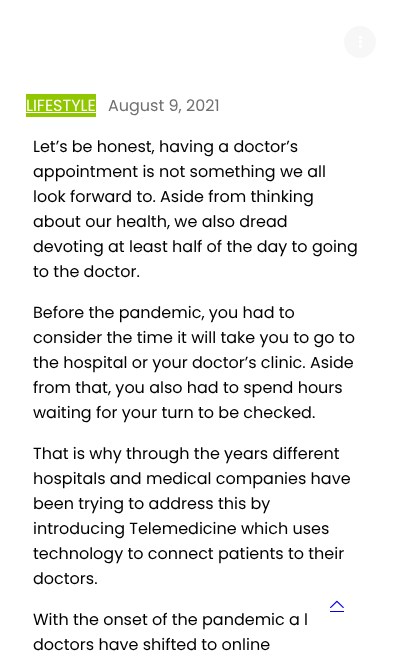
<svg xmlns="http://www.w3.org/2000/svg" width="393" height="660">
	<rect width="100%" height="100%" fill="#FFFFFF" />
	<circle cx="360" cy="42" r="16" fill="#F7F7F7" />
	<image x="359" y="36" width="3" height="12" href="assets/img1.png" />
	<rect x="26" y="94" width="70" height="23" fill="#90C700" />
	<text x="26" y="111" font-family="Poppins" font-size="16" fill="#FFFFFF">LIFESTYLE</text>
	<rect x="26" y="112" width="70" height="1" fill="#FFFFFF" />
	<text x="108" y="111" font-family="Poppins" font-size="16" fill="#707070">August 9, 2021</text>
	<g font-family="Poppins" font-size="16" fill="#000000">
		<text x="33" y="152">Let’s be honest, having a doctor’s</text>
		<text x="33" y="177">appointment is not something we all</text>
		<text x="33" y="202">look forward to. Aside from thinking</text>
		<text x="33" y="227">about our health, we also dread</text>
		<text x="33" y="252">devoting at least half of the day to going</text>
		<text x="33" y="277">to the doctor.</text>
		<text x="33" y="318">Before the pandemic, you had to</text>
		<text x="33" y="343">consider the time it will take you to go to</text>
		<text x="33" y="368">the hospital or your doctor’s clinic. Aside</text>
		<text x="33" y="393">from that, you also had to spend hours</text>
		<text x="33" y="418">waiting for your turn to be checked.</text>
		<text x="33" y="459">That is why through the years different</text>
		<text x="33" y="484">hospitals and medical companies have</text>
		<text x="33" y="509">been trying to address this by</text>
		<text x="33" y="534">introducing Telemedicine which uses</text>
		<text x="33" y="559">technology to connect patients to their</text>
		<text x="33" y="584">doctors.</text>
		<text x="33" y="625">With the onset of the pandemic a l</text>
		<text x="33" y="650">doctors have shifted to online</text>
	</g>
	<rect x="330" y="611" width="14" height="1" fill="#0000EE" />
	<image x="330" y="600" width="14" height="8" href="assets/img2.png" />
</svg>
